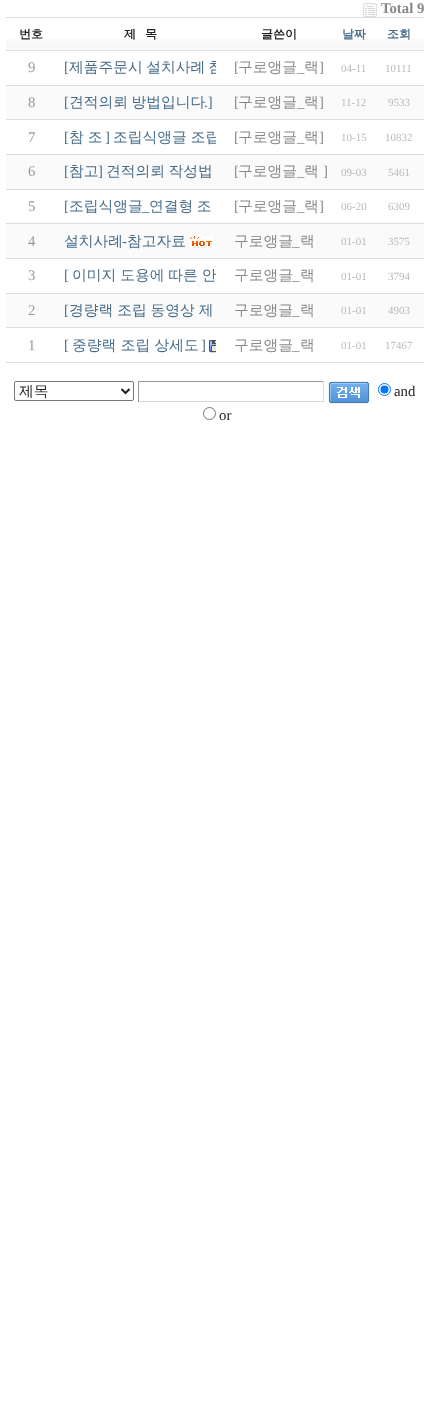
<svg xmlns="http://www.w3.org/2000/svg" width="430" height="1415">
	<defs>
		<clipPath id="clip1"><rect x="64" y="58" width="152" height="19" /></clipPath>
		<clipPath id="clip2"><rect x="64" y="128" width="152" height="19" /></clipPath>
	</defs>
	<rect width="100%" height="100%" fill="#FFFFFF" />
	<image x="363" y="3" width="14" height="14" href="assets/img1.png" />
	<text x="381" y="13" font-family="Liberation Serif" font-size="14.75" font-weight="700" fill="#888888">Total 9</text>
	<image x="6" y="39" width="50" height="11" href="assets/img2.png" />
	<rect x="6" y="17" width="418" height="1" fill="#DDDDDD" />
	<rect x="6" y="50" width="418" height="1" fill="#DDDDDD" />
	<text x="19" y="38" font-family="WenQuanYi Zen Hei" font-size="12" font-weight="700" fill="#222222">번호</text>
	<image x="56" y="39" width="168" height="11" href="assets/img3.png" />
	<g font-family="WenQuanYi Zen Hei" font-size="12" font-weight="700" fill="#222222">
		<text x="124" y="38">제</text>
		<text x="145" y="38">목</text>
	</g>
	<image x="224" y="39" width="110" height="11" href="assets/img4.png" />
	<text x="261" y="38" font-family="WenQuanYi Zen Hei" font-size="12" font-weight="700" fill="#222222">글쓴이</text>
	<image x="334" y="39" width="40" height="11" href="assets/img5.png" />
	<text x="342" y="38" font-family="WenQuanYi Zen Hei" font-size="12" font-weight="700" fill="#466C8A">날짜</text>
	<image x="374" y="39" width="50" height="11" href="assets/img2.png" />
	<text x="387" y="38" font-family="WenQuanYi Zen Hei" font-size="12" font-weight="700" fill="#466C8A">조회</text>
	<rect x="6" y="85" width="50" height="1" fill="#DDDDDD" />
	<text x="28" y="72" font-family="Liberation Serif" font-size="14.75" fill="#999999">9</text>
	<text x="64" y="72" font-family="Liberation Serif" font-size="14.75" fill="#466C8A">[</text>
	<g clip-path="url(#clip1)">
		<text x="69" y="72" word-spacing="-1" font-family="WenQuanYi Zen Hei" font-size="14.75" font-weight="500" fill="#466C8A">제품주문시 설치사례 참</text>
	</g>
	<rect x="56" y="85" width="368" height="1" fill="#DDDDDD" />
	<text x="234" y="72" font-family="Liberation Serif" font-size="14.75" fill="#888888">[</text>
	<text x="238" y="72" font-family="WenQuanYi Zen Hei" font-size="14.75" font-weight="500" fill="#888888">구로앵글</text>
	<text x="297" y="72" font-family="Liberation Serif" font-size="14.75" fill="#888888">_</text>
	<text x="304" y="72" font-family="WenQuanYi Zen Hei" font-size="14.75" font-weight="500" fill="#888888">랙</text>
	<text x="319" y="72" font-family="Liberation Serif" font-size="14.75" fill="#888888">]</text>
	<g font-family="Liberation Serif" font-size="11" fill="#BABABA">
		<text x="341" y="72">04-11</text>
		<text x="385" y="72">10111</text>
	</g>
	<rect x="6" y="86" width="418" height="33" fill="#FAFAFA" />
	<rect x="6" y="119" width="50" height="1" fill="#DDDDDD" />
	<text x="28" y="107" font-family="Liberation Serif" font-size="14.75" fill="#999999">8</text>
	<text x="64" y="107" font-family="Liberation Serif" font-size="14.75" fill="#466C8A">[</text>
	<text x="69" y="107" word-spacing="-1" font-family="WenQuanYi Zen Hei" font-size="14.75" font-weight="500" fill="#466C8A">견적의뢰 방법입니다</text>
	<text x="204" y="107" font-family="Liberation Serif" font-size="14.75" fill="#466C8A">.]</text>
	<rect x="56" y="119" width="368" height="1" fill="#DDDDDD" />
	<text x="234" y="107" font-family="Liberation Serif" font-size="14.75" fill="#888888">[</text>
	<text x="238" y="107" font-family="WenQuanYi Zen Hei" font-size="14.75" font-weight="500" fill="#888888">구로앵글</text>
	<text x="297" y="107" font-family="Liberation Serif" font-size="14.75" fill="#888888">_</text>
	<text x="304" y="107" font-family="WenQuanYi Zen Hei" font-size="14.75" font-weight="500" fill="#888888">랙</text>
	<text x="319" y="107" font-family="Liberation Serif" font-size="14.75" fill="#888888">]</text>
	<g font-family="Liberation Serif" font-size="11" fill="#BABABA">
		<text x="341" y="106">11-12</text>
		<text x="388" y="106">9533</text>
	</g>
	<rect x="6" y="154" width="50" height="1" fill="#DDDDDD" />
	<text x="28" y="142" font-family="Liberation Serif" font-size="14.75" fill="#999999">7</text>
	<text x="64" y="142" font-family="Liberation Serif" font-size="14.75" fill="#466C8A">[</text>
	<text x="69" y="142" word-spacing="-0.5" font-family="WenQuanYi Zen Hei" font-size="14.75" font-weight="500" fill="#466C8A">참 조</text>
	<text x="105" y="142" font-family="Liberation Serif" font-size="14.75" fill="#466C8A">]</text>
	<g clip-path="url(#clip2)">
		<text x="113" y="142" word-spacing="-0.5" font-family="WenQuanYi Zen Hei" font-size="14.75" font-weight="500" fill="#466C8A">조립식앵글 조립</text>
	</g>
	<rect x="56" y="154" width="368" height="1" fill="#DDDDDD" />
	<text x="234" y="142" font-family="Liberation Serif" font-size="14.75" fill="#888888">[</text>
	<text x="238" y="142" font-family="WenQuanYi Zen Hei" font-size="14.75" font-weight="500" fill="#888888">구로앵글</text>
	<text x="297" y="142" font-family="Liberation Serif" font-size="14.75" fill="#888888">_</text>
	<text x="304" y="142" font-family="WenQuanYi Zen Hei" font-size="14.75" font-weight="500" fill="#888888">랙</text>
	<text x="319" y="142" font-family="Liberation Serif" font-size="14.75" fill="#888888">]</text>
	<g font-family="Liberation Serif" font-size="11" fill="#BABABA">
		<text x="341" y="141">10-15</text>
		<text x="385" y="141">10832</text>
	</g>
	<rect x="6" y="155" width="418" height="34" fill="#FAFAFA" />
	<rect x="6" y="189" width="50" height="1" fill="#DDDDDD" />
	<text x="28" y="176" font-family="Liberation Serif" font-size="14.75" fill="#999999">6</text>
	<text x="64" y="176" font-family="Liberation Serif" font-size="14.75" fill="#466C8A">[</text>
	<text x="69" y="176" font-family="WenQuanYi Zen Hei" font-size="14.75" font-weight="500" fill="#466C8A">참고</text>
	<text x="98" y="176" font-family="Liberation Serif" font-size="14.75" fill="#466C8A">]</text>
	<text x="106" y="176" word-spacing="-1" font-family="WenQuanYi Zen Hei" font-size="14.75" font-weight="500" fill="#466C8A">견적의뢰 작성법</text>
	<rect x="56" y="189" width="368" height="1" fill="#DDDDDD" />
	<text x="234" y="176" font-family="Liberation Serif" font-size="14.75" fill="#888888">[</text>
	<text x="238" y="176" font-family="WenQuanYi Zen Hei" font-size="14.75" font-weight="500" fill="#888888">구로앵글</text>
	<text x="297" y="176" font-family="Liberation Serif" font-size="14.75" fill="#888888">_</text>
	<text x="304" y="176" font-family="WenQuanYi Zen Hei" font-size="14.75" font-weight="500" fill="#888888">랙</text>
	<text x="323" y="176" font-family="Liberation Serif" font-size="14.75" fill="#888888">]</text>
	<g font-family="Liberation Serif" font-size="11" fill="#BABABA">
		<text x="341" y="176">09-03</text>
		<text x="388" y="176">5461</text>
	</g>
	<rect x="6" y="223" width="50" height="1" fill="#DDDDDD" />
	<text x="28" y="211" font-family="Liberation Serif" font-size="14.75" fill="#999999">5</text>
	<text x="64" y="211" font-family="Liberation Serif" font-size="14.75" fill="#466C8A">[</text>
	<text x="69" y="211" font-family="WenQuanYi Zen Hei" font-size="14.75" font-weight="500" fill="#466C8A">조립식앵글</text>
	<text x="142" y="211" font-family="Liberation Serif" font-size="14.75" fill="#466C8A">_</text>
	<text x="149" y="211" word-spacing="-1" font-family="WenQuanYi Zen Hei" font-size="14.75" font-weight="500" fill="#466C8A">연결형 조</text>
	<rect x="56" y="223" width="368" height="1" fill="#DDDDDD" />
	<text x="234" y="211" font-family="Liberation Serif" font-size="14.75" fill="#888888">[</text>
	<text x="238" y="211" font-family="WenQuanYi Zen Hei" font-size="14.75" font-weight="500" fill="#888888">구로앵글</text>
	<text x="297" y="211" font-family="Liberation Serif" font-size="14.75" fill="#888888">_</text>
	<text x="304" y="211" font-family="WenQuanYi Zen Hei" font-size="14.75" font-weight="500" fill="#888888">랙</text>
	<text x="319" y="211" font-family="Liberation Serif" font-size="14.75" fill="#888888">]</text>
	<g font-family="Liberation Serif" font-size="11" fill="#BABABA">
		<text x="341" y="210">06-20</text>
		<text x="388" y="210">6309</text>
	</g>
	<rect x="6" y="224" width="418" height="34" fill="#FAFAFA" />
	<rect x="6" y="258" width="50" height="1" fill="#DDDDDD" />
	<text x="28" y="246" font-family="Liberation Serif" font-size="14.75" fill="#999999">4</text>
	<text x="64" y="246" font-family="WenQuanYi Zen Hei" font-size="14.75" font-weight="500" fill="#466C8A">설치사례</text>
	<text x="122" y="246" font-family="Liberation Serif" font-size="14.75" fill="#466C8A">-</text>
	<text x="127" y="246" font-family="WenQuanYi Zen Hei" font-size="14.75" font-weight="500" fill="#466C8A">참고자료</text>
	<image x="190" y="236" width="24" height="13" href="assets/img6.png" />
	<rect x="56" y="258" width="368" height="1" fill="#DDDDDD" />
	<text x="234" y="246" font-family="WenQuanYi Zen Hei" font-size="14.75" font-weight="500" fill="#888888">구로앵글</text>
	<text x="292" y="246" font-family="Liberation Serif" font-size="14.75" fill="#888888">_</text>
	<text x="300" y="246" font-family="WenQuanYi Zen Hei" font-size="14.75" font-weight="500" fill="#888888">랙</text>
	<g font-family="Liberation Serif" font-size="11" fill="#BABABA">
		<text x="341" y="245">01-01</text>
		<text x="388" y="245">3575</text>
	</g>
	<rect x="6" y="293" width="50" height="1" fill="#DDDDDD" />
	<text x="28" y="280" font-family="Liberation Serif" font-size="14.75" fill="#999999">3</text>
	<text x="64" y="280" font-family="Liberation Serif" font-size="14.75" fill="#466C8A">[</text>
	<text x="72" y="280" word-spacing="-0.5" font-family="WenQuanYi Zen Hei" font-size="14.75" font-weight="500" fill="#466C8A">이미지 도용에 따른 안</text>
	<rect x="56" y="293" width="368" height="1" fill="#DDDDDD" />
	<text x="234" y="280" font-family="WenQuanYi Zen Hei" font-size="14.75" font-weight="500" fill="#888888">구로앵글</text>
	<text x="292" y="280" font-family="Liberation Serif" font-size="14.75" fill="#888888">_</text>
	<text x="300" y="280" font-family="WenQuanYi Zen Hei" font-size="14.75" font-weight="500" fill="#888888">랙</text>
	<g font-family="Liberation Serif" font-size="11" fill="#BABABA">
		<text x="341" y="280">01-01</text>
		<text x="388" y="280">3794</text>
	</g>
	<rect x="6" y="294" width="418" height="33" fill="#FAFAFA" />
	<rect x="6" y="327" width="50" height="1" fill="#DDDDDD" />
	<text x="28" y="315" font-family="Liberation Serif" font-size="14.75" fill="#999999">2</text>
	<text x="64" y="315" font-family="Liberation Serif" font-size="14.75" fill="#466C8A">[</text>
	<text x="69" y="315" word-spacing="-0.5" font-family="WenQuanYi Zen Hei" font-size="14.75" font-weight="500" fill="#466C8A">경량랙 조립 동영상 제</text>
	<rect x="56" y="327" width="368" height="1" fill="#DDDDDD" />
	<text x="234" y="315" font-family="WenQuanYi Zen Hei" font-size="14.75" font-weight="500" fill="#888888">구로앵글</text>
	<text x="292" y="315" font-family="Liberation Serif" font-size="14.75" fill="#888888">_</text>
	<text x="300" y="315" font-family="WenQuanYi Zen Hei" font-size="14.75" font-weight="500" fill="#888888">랙</text>
	<g font-family="Liberation Serif" font-size="11" fill="#BABABA">
		<text x="341" y="314">01-01</text>
		<text x="388" y="314">4903</text>
	</g>
	<rect x="6" y="362" width="50" height="1" fill="#DDDDDD" />
	<text x="28" y="350" font-family="Liberation Serif" font-size="14.75" fill="#999999">1</text>
	<text x="64" y="350" font-family="Liberation Serif" font-size="14.75" fill="#466C8A">[</text>
	<text x="72" y="350" font-family="WenQuanYi Zen Hei" font-size="14.75" font-weight="500" fill="#466C8A">중량랙 조립 상세도</text>
	<text x="201" y="350" font-family="Liberation Serif" font-size="14.75" fill="#466C8A">]</text>
	<image x="209" y="340" width="7" height="13" href="assets/img7.png" />
	<rect x="56" y="362" width="368" height="1" fill="#DDDDDD" />
	<text x="234" y="350" font-family="WenQuanYi Zen Hei" font-size="14.75" font-weight="500" fill="#888888">구로앵글</text>
	<text x="292" y="350" font-family="Liberation Serif" font-size="14.75" fill="#888888">_</text>
	<text x="300" y="350" font-family="WenQuanYi Zen Hei" font-size="14.75" font-weight="500" fill="#888888">랙</text>
	<g font-family="Liberation Serif" font-size="11" fill="#BABABA">
		<text x="341" y="349">01-01</text>
		<text x="385" y="349">17467</text>
	</g>
	<rect x="14.5" y="381.5" width="119" height="19" rx="1.5" fill="none" stroke="#767676" />
	<path d="M121.5 389L125.5 393L129.5 389" fill="none" stroke="#222222" stroke-width="2" />
	<text x="19" y="396" font-family="WenQuanYi Zen Hei" font-size="14.75" font-weight="500" fill="#222222">제목</text>
	<rect x="138" y="381" width="186" height="1" fill="#9A9A9A" />
	<rect x="323" y="381" width="1" height="21" fill="#D8D8D8" />
	<rect x="138" y="401" width="186" height="1" fill="#D8D8D8" />
	<rect x="138" y="381" width="1" height="21" fill="#9A9A9A" />
	<image x="328" y="381" width="42" height="23" href="assets/img8.png" />
	<circle cx="384.5" cy="389.5" r="6" fill="none" stroke="#0075FF" />
	<circle cx="384.5" cy="389.5" r="4" fill="#0075FF" />
	<text x="394" y="396" font-family="Liberation Serif" font-size="14.75" fill="#222222">and</text>
	<circle cx="209.5" cy="413.5" r="6" fill="none" stroke="#767676" />
	<text x="219" y="420" font-family="Liberation Serif" font-size="14.75" fill="#222222">or</text>
</svg>
